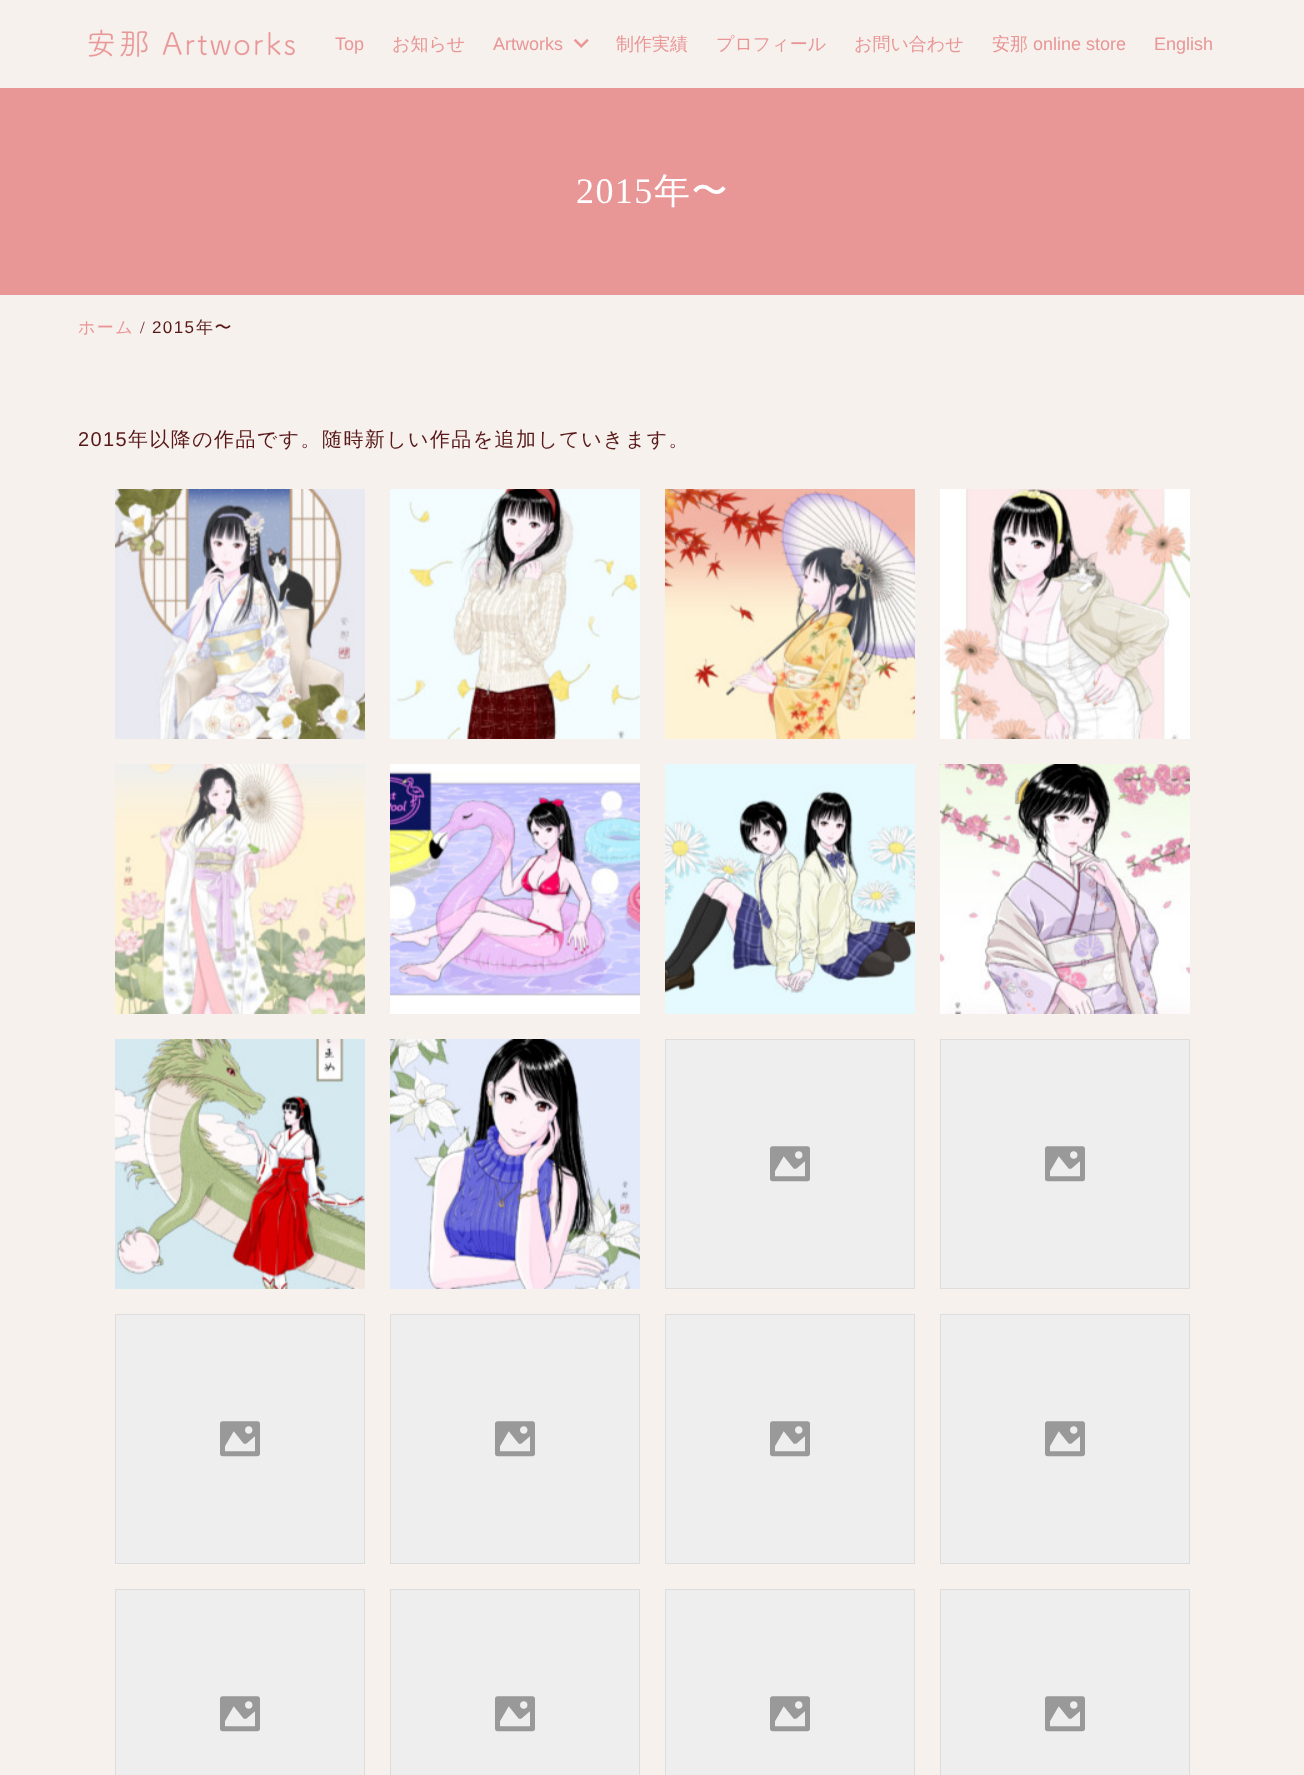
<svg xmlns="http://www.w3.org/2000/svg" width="1304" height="1775">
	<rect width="100%" height="100%" fill="#F7F1ED" />
	<image x="88" y="29" width="207" height="28" href="assets/img1.png" />
	<text x="335" y="50" font-family="Liberation Sans" font-size="18" fill="#E89696">Top</text>
	<text x="392" y="50" font-family="WenQuanYi Zen Hei" font-size="18" font-weight="500" fill="#E89696">お知らせ</text>
	<text x="493" y="50" font-family="Liberation Sans" font-size="18" fill="#E89696">Artworks</text>
	<image x="573" y="39" width="16" height="9" href="assets/img2.png" />
	<g font-family="WenQuanYi Zen Hei" font-size="18" font-weight="500" fill="#E89696">
		<text x="616" y="50">制作実績</text>
		<text x="716" y="50">プロフィール</text>
		<text x="854" y="50">お問い合わせ</text>
		<text x="992" y="50">安那</text>
	</g>
	<g font-family="Liberation Sans" font-size="18" fill="#E89696">
		<text x="1033" y="50">online store</text>
		<text x="1154" y="50">English</text>
	</g>
	<rect x="0" y="88" width="1304" height="207" fill="#E89696" />
	<text x="576" y="203" font-family="Liberation Serif" font-size="36" letter-spacing="1.4" fill="#FFFFFF">2015</text>
	<text x="654" y="203" font-family="WenQuanYi Zen Hei" font-size="36" font-weight="500" letter-spacing="1.4" fill="#FFFFFF">年〜</text>
	<text x="78" y="333" font-family="WenQuanYi Zen Hei" font-size="17" font-weight="500" letter-spacing="1.4" fill="#E89696">ホーム</text>
	<text x="140" y="333" font-family="Liberation Serif" font-size="17" letter-spacing="1.4" fill="#561818">/</text>
	<text x="152" y="333" font-family="Liberation Sans" font-size="17" letter-spacing="1.4" fill="#561818">2015</text>
	<text x="196" y="333" font-family="WenQuanYi Zen Hei" font-size="17" font-weight="500" letter-spacing="1.4" fill="#561818">年〜</text>
	<text x="78" y="446" font-family="Liberation Sans" font-size="20" letter-spacing="1.4" fill="#561818">2015</text>
	<text x="128" y="446" font-family="WenQuanYi Zen Hei" font-size="20" font-weight="500" letter-spacing="1.4" fill="#561818">年以降の作品です。随時新しい作品を追加していきます。</text>
	<image x="115" y="489" width="250" height="250" href="assets/img3.png" />
	<image x="390" y="489" width="250" height="250" href="assets/img4.png" />
	<image x="665" y="489" width="250" height="250" href="assets/img5.png" />
	<image x="940" y="489" width="250" height="250" href="assets/img6.png" />
	<image x="115" y="764" width="250" height="250" href="assets/img7.png" />
	<rect x="390" y="764" width="250" height="250" fill="#FFFFFF" />
	<image x="390" y="771" width="250" height="225" href="assets/img8.png" />
	<image x="665" y="764" width="250" height="250" href="assets/img9.png" />
	<image x="940" y="764" width="250" height="250" href="assets/img10.png" />
	<image x="115" y="1039" width="250" height="250" href="assets/img11.png" />
	<image x="390" y="1039" width="250" height="250" href="assets/img12.png" />
	<rect x="665.5" y="1039.5" width="249" height="249" fill="#EEEEEE" stroke="#DDDDDD" />
	<image x="770" y="1146" width="40" height="36" href="assets/img13.png" />
	<rect x="940.5" y="1039.5" width="249" height="249" fill="#EEEEEE" stroke="#DDDDDD" />
	<image x="1045" y="1146" width="40" height="36" href="assets/img13.png" />
	<rect x="115.5" y="1314.5" width="249" height="249" fill="#EEEEEE" stroke="#DDDDDD" />
	<image x="220" y="1421" width="40" height="36" href="assets/img13.png" />
	<rect x="390.5" y="1314.5" width="249" height="249" fill="#EEEEEE" stroke="#DDDDDD" />
	<image x="495" y="1421" width="40" height="36" href="assets/img14.png" />
	<rect x="665.5" y="1314.5" width="249" height="249" fill="#EEEEEE" stroke="#DDDDDD" />
	<image x="770" y="1421" width="40" height="36" href="assets/img13.png" />
	<rect x="940.5" y="1314.5" width="249" height="249" fill="#EEEEEE" stroke="#DDDDDD" />
	<image x="1045" y="1421" width="40" height="36" href="assets/img13.png" />
	<rect x="115.5" y="1589.5" width="249" height="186" fill="#EEEEEE" stroke="#DDDDDD" />
	<image x="220" y="1696" width="40" height="36" href="assets/img13.png" />
	<rect x="390.5" y="1589.5" width="249" height="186" fill="#EEEEEE" stroke="#DDDDDD" />
	<image x="495" y="1696" width="40" height="36" href="assets/img14.png" />
	<rect x="665.5" y="1589.5" width="249" height="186" fill="#EEEEEE" stroke="#DDDDDD" />
	<image x="770" y="1696" width="40" height="36" href="assets/img13.png" />
	<rect x="940.5" y="1589.5" width="249" height="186" fill="#EEEEEE" stroke="#DDDDDD" />
	<image x="1045" y="1696" width="40" height="36" href="assets/img13.png" />
</svg>
